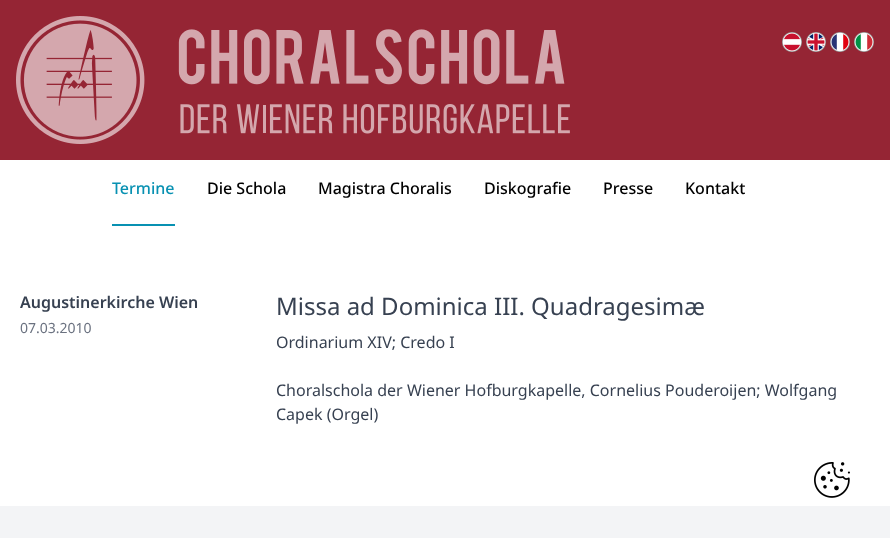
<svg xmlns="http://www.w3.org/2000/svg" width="890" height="538">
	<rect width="100%" height="100%" fill="#FFFFFF" />
	<rect x="0" y="0" width="890" height="160" fill="#952534" />
	<image x="16" y="16" width="554" height="128" href="assets/img1.png" />
	<image x="782" y="32" width="20" height="20" href="assets/img2.png" />
	<image x="806" y="32" width="20" height="20" href="assets/img3.png" />
	<image x="830" y="32" width="20" height="20" href="assets/img4.png" />
	<image x="854" y="32" width="20" height="20" href="assets/img5.png" />
	<rect x="112" y="224" width="63" height="2" fill="#0891B2" />
	<text x="112" y="194" font-family="Noto Sans" font-size="16" font-weight="500" fill="#0891B2">Termine</text>
	<g font-family="Noto Sans" font-size="16" font-weight="500" fill="#000000">
		<text x="207" y="194">Die Schola</text>
		<text x="318" y="194">Magistra Choralis</text>
		<text x="484" y="194">Diskografie</text>
		<text x="603" y="194">Presse</text>
		<text x="685" y="194">Kontakt</text>
	</g>
	<text x="20" y="308" font-family="Noto Sans" font-size="16" font-weight="600" fill="#374151">Augustinerkirche Wien</text>
	<text x="20" y="333" font-family="Noto Sans" font-size="14" fill="#6B7280">07.03.2010</text>
	<text x="276" y="315" font-family="Noto Sans" font-size="24" fill="#374151">Missa ad Dominica III. Quadragesimæ</text>
	<g font-family="Noto Sans" font-size="16" fill="#374151">
		<text x="276" y="348">Ordinarium XIV; Credo I</text>
		<text x="276" y="396">Choralschola der Wiener Hofburgkapelle, Cornelius Pouderoijen; Wolfgang</text>
		<text x="276" y="420">Capek (Orgel)</text>
	</g>
	<image x="814" y="462" width="36" height="36" href="assets/img6.png" />
	<rect x="0" y="506" width="890" height="32" fill="#F3F4F6" />
</svg>
